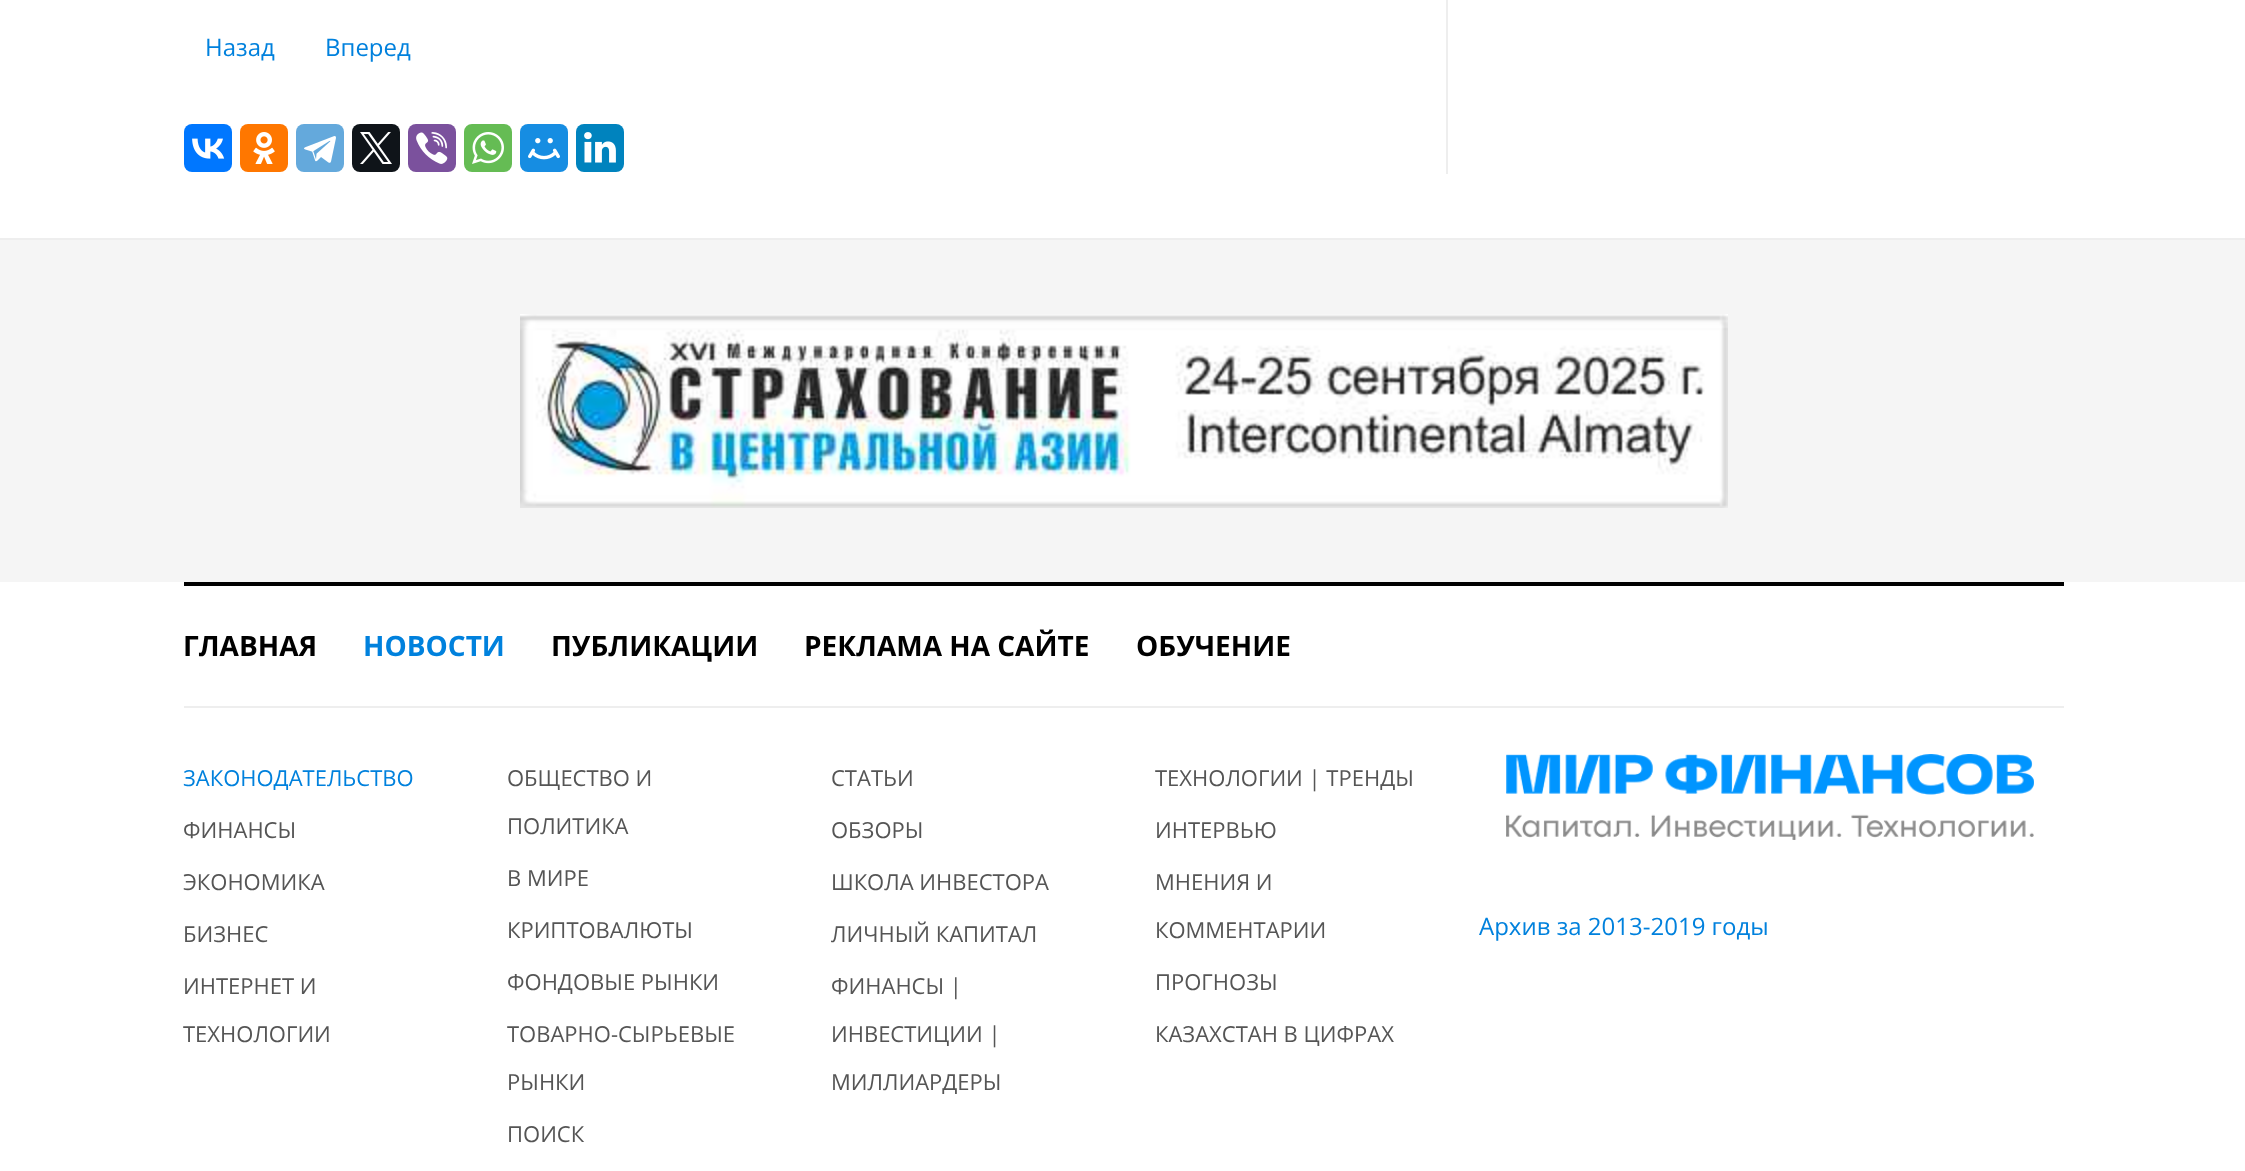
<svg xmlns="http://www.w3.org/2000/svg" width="2245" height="1171">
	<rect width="100%" height="100%" fill="#FFFFFF" />
	<g font-family="Open Sans" font-size="24" fill="#0081DD">
		<text x="205" y="56">Назад</text>
		<text x="325" y="56">Вперед</text>
	</g>
	<rect x="184" y="124" width="48" height="48" rx="8" fill="#0077FF" />
	<image x="192" y="138" width="33" height="21" href="assets/img1.png" />
	<rect x="240" y="124" width="48" height="48" rx="8" fill="#FF7700" />
	<image x="253" y="132" width="22" height="32" href="assets/img2.png" />
	<rect x="296" y="124" width="48" height="48" rx="8" fill="#64A9DC" />
	<image x="304" y="136" width="32" height="27" href="assets/img3.png" />
	<rect x="352" y="124" width="48" height="48" rx="8" fill="#0F1419" />
	<image x="360" y="132" width="32" height="32" href="assets/img4.png" />
	<rect x="408" y="124" width="48" height="48" rx="8" fill="#7B519D" />
	<image x="416" y="132" width="32" height="32" href="assets/img5.png" />
	<rect x="464" y="124" width="48" height="48" rx="8" fill="#65BC54" />
	<image x="472" y="132" width="32" height="32" href="assets/img6.png" />
	<rect x="520" y="124" width="48" height="48" rx="8" fill="#168DE2" />
	<image x="528" y="138" width="32" height="22" href="assets/img7.png" />
	<rect x="576" y="124" width="48" height="48" rx="8" fill="#0083BE" />
	<image x="584" y="132" width="32" height="31" href="assets/img8.png" />
	<rect x="1446" y="0" width="2" height="174" fill="#EEEEEE" />
	<rect x="0" y="240" width="2245" height="342" fill="#F5F5F5" />
	<rect x="0" y="238" width="2245" height="2" fill="#EEEEEE" />
	<image x="520" y="314" width="1208" height="194" href="assets/img9.png" />
	<rect x="184" y="582" width="1880" height="4" fill="#000000" />
	<rect x="184" y="706" width="1880" height="2" fill="#EEEEEE" />
	<text x="183" y="656" font-family="Open Sans" font-size="28" font-weight="700" fill="#000000">ГЛАВНАЯ</text>
	<text x="363" y="656" font-family="Open Sans" font-size="28" font-weight="700" fill="#0081DD">НОВОСТИ</text>
	<g font-family="Open Sans" font-size="28" font-weight="700" fill="#000000">
		<text x="551" y="656">ПУБЛИКАЦИИ</text>
		<text x="804" y="656">РЕКЛАМА НА САЙТЕ</text>
		<text x="1136" y="656">ОБУЧЕНИЕ</text>
	</g>
	<text x="183" y="786" font-family="Open Sans" font-size="22" fill="#0081DD">ЗАКОНОДАТЕЛЬСТВО</text>
	<g font-family="Open Sans" font-size="22" fill="#555555">
		<text x="183" y="838">ФИНАНСЫ</text>
		<text x="183" y="890">ЭКОНОМИКА</text>
		<text x="183" y="942">БИЗНЕС</text>
		<text x="183" y="994">ИНТЕРНЕТ И</text>
		<text x="183" y="1042">ТЕХНОЛОГИИ</text>
		<text x="507" y="786">ОБЩЕСТВО И</text>
		<text x="507" y="834">ПОЛИТИКА</text>
		<text x="507" y="886">В МИРЕ</text>
		<text x="507" y="938">КРИПТОВАЛЮТЫ</text>
		<text x="507" y="990">ФОНДОВЫЕ РЫНКИ</text>
		<text x="507" y="1042">ТОВАРНО-СЫРЬЕВЫЕ</text>
		<text x="507" y="1090">РЫНКИ</text>
		<text x="507" y="1142">ПОИСК</text>
		<text x="831" y="786">СТАТЬИ</text>
		<text x="831" y="838">ОБЗОРЫ</text>
		<text x="831" y="890">ШКОЛА ИНВЕСТОРА</text>
		<text x="831" y="942">ЛИЧНЫЙ КАПИТАЛ</text>
		<text x="831" y="994">ФИНАНСЫ |</text>
		<text x="831" y="1042">ИНВЕСТИЦИИ |</text>
		<text x="831" y="1090">МИЛЛИАРДЕРЫ</text>
		<text x="1155" y="786">ТЕХНОЛОГИИ | ТРЕНДЫ</text>
		<text x="1155" y="838">ИНТЕРВЬЮ</text>
		<text x="1155" y="890">МНЕНИЯ И</text>
		<text x="1155" y="938">КОММЕНТАРИИ</text>
		<text x="1155" y="990">ПРОГНОЗЫ</text>
		<text x="1155" y="1042">КАЗАХСТАН В ЦИФРАХ</text>
	</g>
	<image x="1506" y="754" width="528" height="86" href="assets/img10.png" />
	<text x="1479" y="935" font-family="Open Sans" font-size="24" fill="#0081DD">Архив за 2013-2019 годы</text>
</svg>
